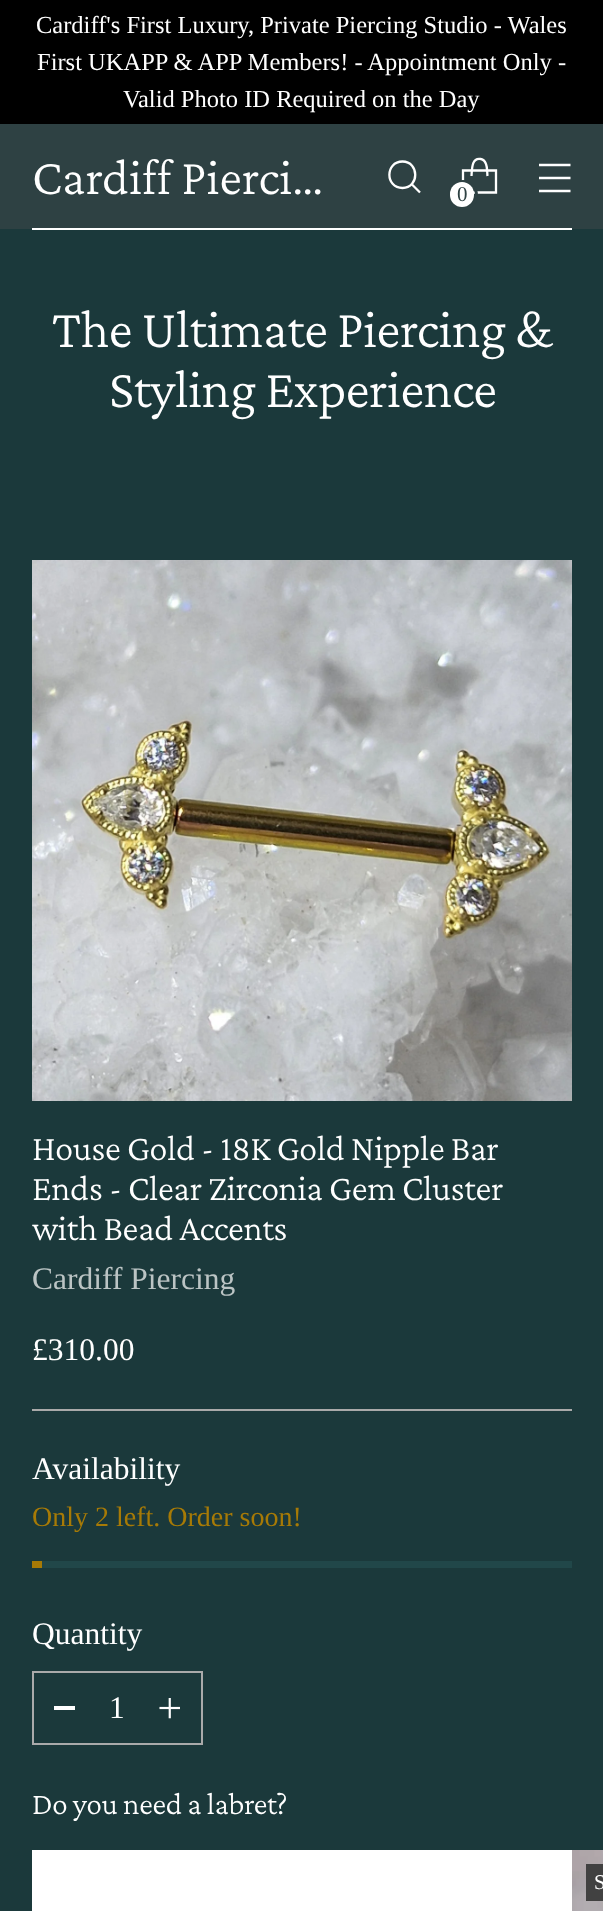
<svg xmlns="http://www.w3.org/2000/svg" width="603" height="1911">
	<rect width="100%" height="100%" fill="#1B393B" />
	<rect x="0" y="0" width="603" height="124" fill="#000000" />
	<g font-family="Liberation Serif" font-size="24.5" fill="#FFFFFF">
		<text x="36" y="33">Cardiff's First Luxury, Private Piercing Studio - Wales</text>
		<text x="37" y="70">First UKAPP &amp; APP Members! - Appointment Only -</text>
		<text x="123" y="107">Valid Photo ID Required on the Day</text>
	</g>
	<rect x="0" y="124" width="603" height="105" fill="#2E4143" />
	<rect x="32" y="228" width="540" height="2" fill="#FFFFFF" />
	<text x="32" y="194" font-family="Crimson Pro" font-size="51.5" font-weight="300" fill="#FFFFFF">Cardiff Pierci…</text>
	<path d="M402.5 188C419.5 188 419.5 161.5 402.5 161.5C385 161.5 385 188 402.5 188Z" fill="none" stroke="#FFFFFF" stroke-width="2.3" stroke-linecap="round" />
	<path d="M412 184.5L420 192.5" fill="none" stroke="#FFFFFF" stroke-width="2.3" />
	<path d="M539 178H570.5M539 165H570.5M539 191H570.5" fill="none" stroke="#FFFFFF" stroke-width="2.3" />
	<path d="M487.5 176C487 172 487.5 167.5 486 164C485 161.5 483.5 159.5 481 159C471.5 157 472 169.5 471.5 176" fill="none" stroke="#FFFFFF" stroke-width="2.3" stroke-linejoin="bevel" />
	<path d="M496 192.5V170.5H463V192.5Z" fill="none" stroke="#FFFFFF" stroke-width="2.3" />
	<circle cx="463" cy="195" r="13.5" fill="none" stroke="#2E4143" stroke-width="3" />
	<rect x="450" y="182" width="24" height="25" rx="12" fill="#FFFFFF" />
	<text x="457" y="201" font-family="Liberation Serif" font-size="21" fill="#2E4143">0</text>
	<g font-family="Crimson Pro" font-size="54.75" font-weight="300" letter-spacing="-0.55" fill="#FFFFFF">
		<text x="52" y="347">The Ultimate Piercing &amp;</text>
		<text x="109" y="407">Styling Experience</text>
	</g>
	<image x="32" y="560" width="540" height="541" href="assets/img1.png" />
	<rect x="32" y="1409" width="540" height="2" fill="#AAAAAA" />
	<g font-family="Crimson Pro" font-size="36.4" font-weight="300" letter-spacing="-0.35" fill="#FFFFFF">
		<text x="32" y="1160">House Gold - 18K Gold Nipple Bar</text>
		<text x="32" y="1200">Ends - Clear Zirconia Gem Cluster</text>
		<text x="32" y="1240">with Bead Accents</text>
	</g>
	<text x="32" y="1289" font-family="Liberation Serif" font-size="31.5" fill="#BBC4C4">Cardiff Piercing</text>
	<g font-family="Liberation Serif" font-size="31.5" fill="#FFFFFF">
		<text x="32" y="1360">£310.00</text>
		<text x="32" y="1479">Availability</text>
	</g>
	<text x="32" y="1526" font-family="Liberation Serif" font-size="28" fill="#A77A06">Only 2 left. Order soon!</text>
	<rect x="42" y="1561" width="530" height="7" fill="#214749" />
	<rect x="32" y="1561" width="10" height="7" fill="#A77A06" />
	<text x="32" y="1644" font-family="Liberation Serif" font-size="31.5" fill="#FFFFFF">Quantity</text>
	<rect x="33" y="1672" width="169" height="72" fill="none" stroke="#AAAAAA" stroke-width="2" />
	<rect x="54" y="1706" width="21" height="4" fill="#FFFFFF" />
	<text x="109" y="1718" font-family="Liberation Serif" font-size="31.5" fill="#FFFFFF">1</text>
	<image x="159" y="1698" width="21" height="21" href="assets/img2.png" />
	<text x="32" y="1814" font-family="Crimson Pro" font-size="31.25" font-weight="300" letter-spacing="-0.3" fill="#FFFFFF">Do you need a labret?</text>
	<rect x="32" y="1850" width="540" height="61" fill="#FFFFFF" />
	<image x="572" y="1850" width="31" height="61" href="assets/img3.png" />
	<rect x="586" y="1864" width="17" height="37" fill="#414141" />
	<text x="594" y="1889" font-family="Liberation Serif" font-size="21" fill="#FFFFFF">S</text>
</svg>
